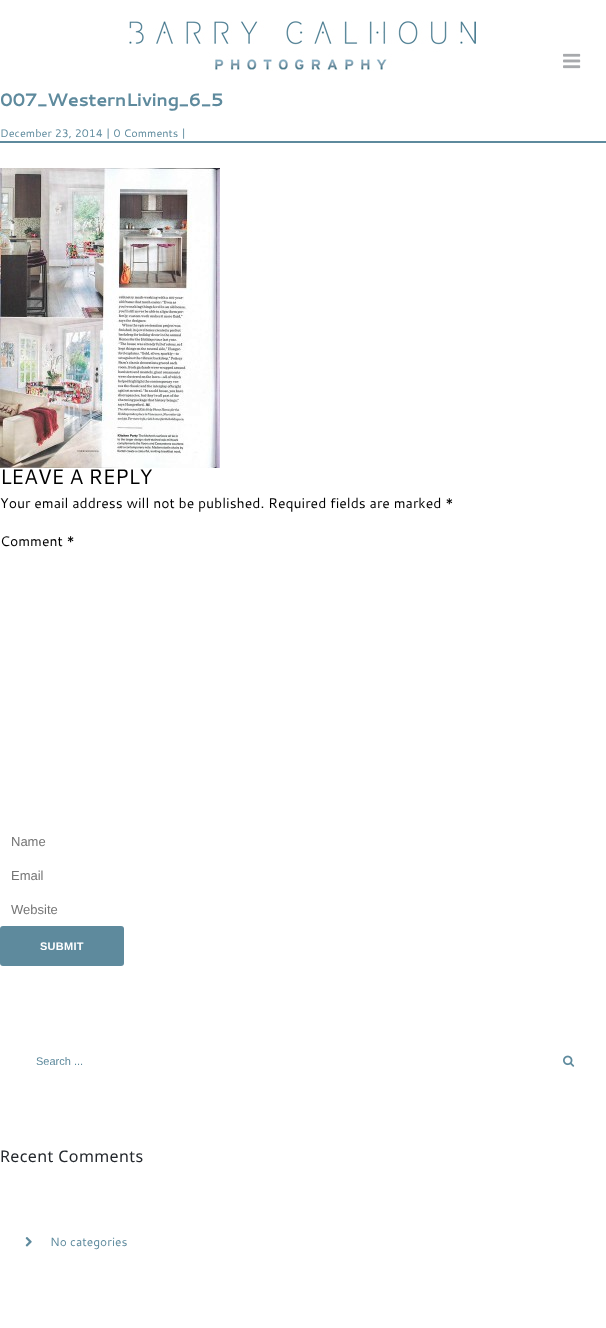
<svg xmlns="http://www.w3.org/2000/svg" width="606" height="1328">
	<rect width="100%" height="100%" fill="#FFFFFF" />
	<image x="129" y="20" width="347" height="51" href="assets/img1.png" />
	<image x="563" y="53" width="18" height="16" href="assets/img2.png" />
	<text x="0" y="106" font-family="Cantarell" font-size="18" font-weight="700" letter-spacing="-0.45" fill="#5E8A9D">007_WesternLiving_6_5</text>
	<text x="0" y="137" font-family="Cantarell" font-size="11" fill="#5E8A9D">December 23, 2014 | 0 Comments |</text>
	<rect x="0" y="141" width="606" height="2" fill="#5E8A9D" />
	<image x="0" y="168" width="220" height="300" href="assets/img3.png" />
	<text x="0" y="484" font-family="Cantarell" font-size="21" letter-spacing="-0.5" fill="#000000">LEAVE A REPLY</text>
	<g font-family="Cantarell" font-size="14" fill="#000000">
		<text x="0" y="508">Your email address will not be published. Required fields are marked *</text>
		<text x="0" y="546">Comment *</text>
	</g>
	<g font-family="Liberation Sans" font-size="13" fill="#757575">
		<text x="11" y="846">Name</text>
		<text x="11" y="880">Email</text>
		<text x="11" y="914">Website</text>
	</g>
	<rect x="0" y="926" width="124" height="40" rx="3" fill="#5E8A9D" />
	<text x="40" y="950" font-family="Liberation Sans" font-size="11" font-weight="700" letter-spacing="0.25" fill="#FFFFFF">SUBMIT</text>
	<text x="36" y="1065" font-family="Liberation Sans" font-size="11" fill="#5E8A9D">Search ...</text>
	<image x="563" y="1055" width="12" height="12" href="assets/img4.png" />
	<text x="0" y="1162" font-family="Noto Sans" font-size="16" letter-spacing="0.4" fill="#23272C">Recent Comments</text>
	<image x="25" y="1237" width="7" height="10" href="assets/img5.png" />
	<text x="50" y="1246" font-family="Cantarell" font-size="12" fill="#5E8A9D">No categories</text>
</svg>
